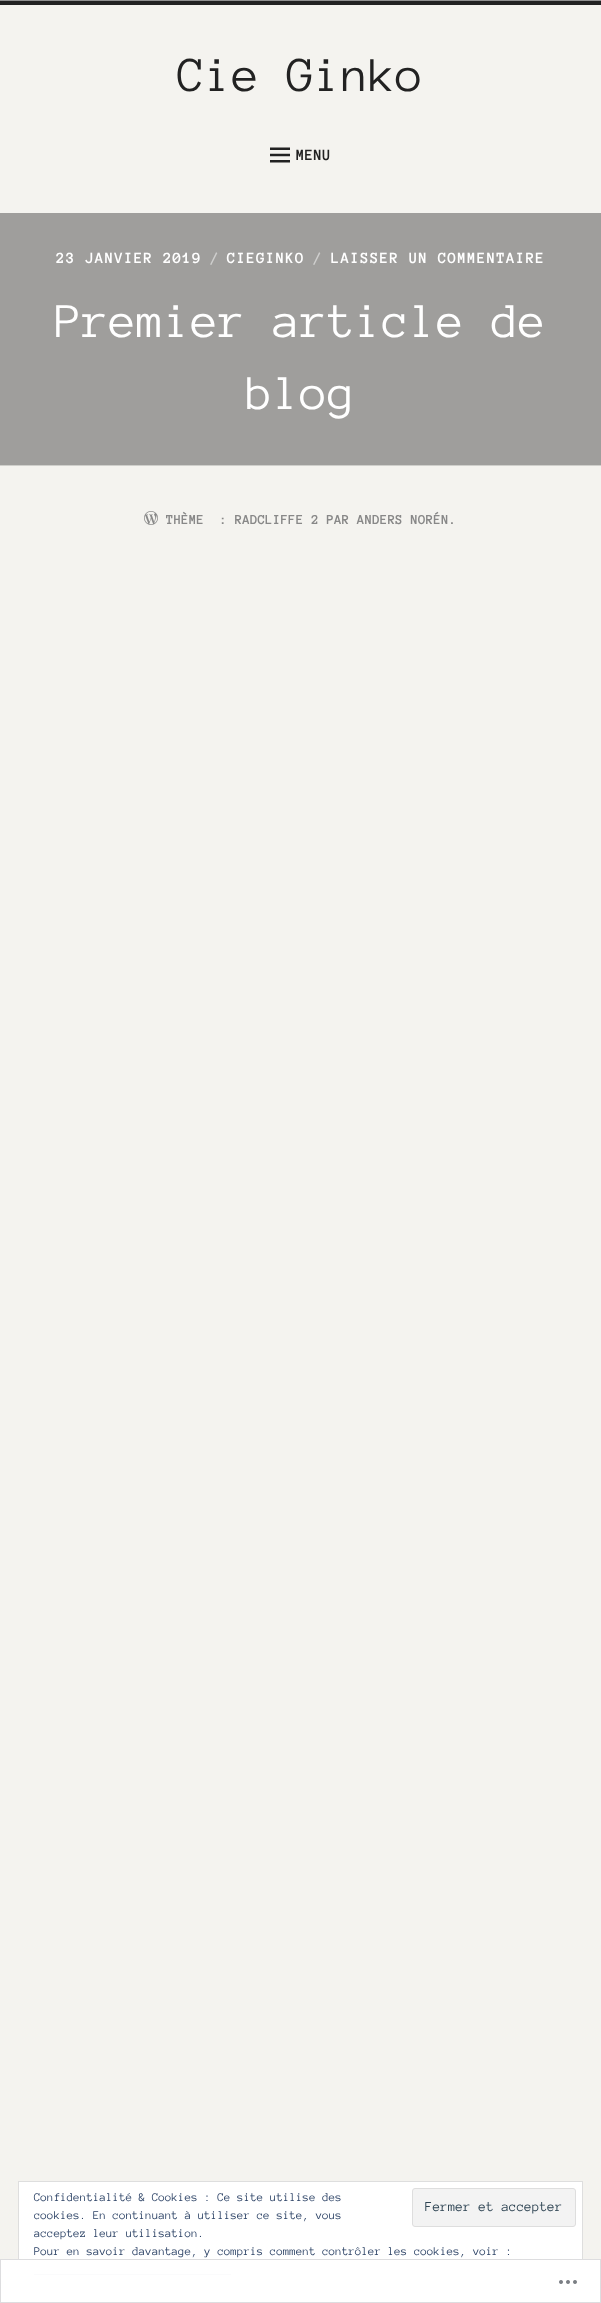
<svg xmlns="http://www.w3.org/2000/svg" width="601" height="2303">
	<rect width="100%" height="100%" fill="#F4F3EF" />
	<rect x="0" y="1" width="601" height="4" fill="#222222" />
	<rect x="0" y="0" width="601" height="1" fill="#919191" />
	<text x="178" y="91" font-family="Anonymous Pro" font-size="50" fill="#222222">Cie Ginko</text>
	<image x="270" y="147" width="20" height="16" href="assets/img1.png" />
	<text x="296" y="160" font-family="Anonymous Pro" font-size="16" font-weight="700" fill="#222222">MENU</text>
	<rect x="0" y="213" width="601" height="252" fill="#9F9E9C" />
	<text x="56" y="263" font-family="Anonymous Pro" font-size="16" font-weight="700" letter-spacing="1" fill="#FFFFFF">23 JANVIER 2019</text>
	<text x="210" y="263" font-family="Anonymous Pro" font-size="16" font-weight="700" letter-spacing="1" fill="#CFCFCE">/</text>
	<text x="227" y="263" font-family="Anonymous Pro" font-size="16" font-weight="700" letter-spacing="1" fill="#FFFFFF">CIEGINKO</text>
	<text x="313" y="263" font-family="Anonymous Pro" font-size="16" font-weight="700" letter-spacing="1" fill="#CFCFCE">/</text>
	<text x="331" y="263" font-family="Anonymous Pro" font-size="16" font-weight="700" letter-spacing="1" fill="#FFFFFF">LAISSER UN COMMENTAIRE</text>
	<g font-family="Anonymous Pro" font-size="50" fill="#FFFFFF">
		<text x="55" y="337">Premier article de</text>
		<text x="246" y="409">blog</text>
	</g>
	<rect x="0" y="465" width="601" height="1" fill="#CFCFCB" />
	<image x="144" y="511" width="14" height="14" href="assets/img2.png" />
	<text x="166" y="524" font-family="Anonymous Pro" font-size="14" font-weight="700" fill="#888888" xml:space="preserve">THÈME  : RADCLIFFE 2 PAR ANDERS NORÉN.</text>
	<rect x="18.5" y="2181.5" width="564" height="103" fill="#FFFFFF" stroke="#DEDEDE" />
	<text x="34" y="2201" font-family="Anonymous Pro" font-size="12" fill="#2E4467">Confidentialité &amp; Cookies : Ce site utilise des</text>
	<rect x="412.5" y="2188.5" width="163" height="38" rx="2.5" fill="#F3F3F3" stroke="#DEDEDE" />
	<text x="425" y="2211" font-family="Anonymous Pro" font-size="14" fill="#2E4453">Fermer et accepter</text>
	<g font-family="Anonymous Pro" font-size="12" fill="#2E4467">
		<text x="34" y="2219">cookies. En continuant à utiliser ce site, vous</text>
		<text x="34" y="2237">acceptez leur utilisation.</text>
		<text x="34" y="2255">Pour en savoir davantage, y compris comment contrôler les cookies, voir :</text>
	</g>
	<rect x="34" y="2274" width="197" height="1" fill="#2E4467" />
	<rect x="0.5" y="2259.5" width="600" height="43" fill="#FFFFFF" fill-opacity="0.98" stroke="#DDDDDF" />
	<image x="559" y="2280" width="18" height="4" href="assets/img3.png" />
</svg>
